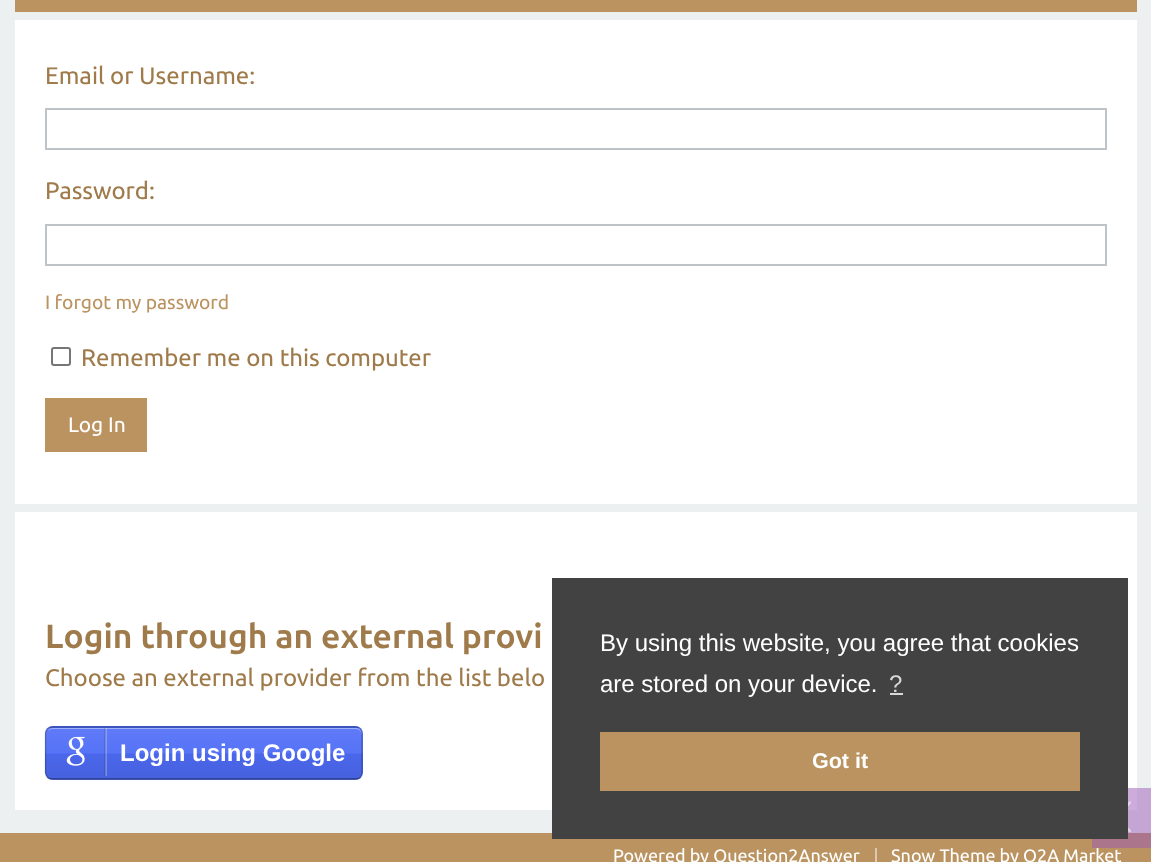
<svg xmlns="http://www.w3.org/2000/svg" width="1151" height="862">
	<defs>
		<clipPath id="clip1"><rect x="45" y="726" width="318" height="54" rx="8" /></clipPath>
		<linearGradient id="g1" gradientUnits="userSpaceOnUse" x1="204" y1="677" x2="204" y2="728"><stop offset="0" stop-color="#FFFFFF" stop-opacity="0.1" /><stop offset="0.49" stop-color="#FFFFFF" stop-opacity="0.05" /><stop offset="0.51" stop-color="#000000" stop-opacity="0.05" /><stop offset="1" stop-color="#000000" stop-opacity="0.1" /></linearGradient>
		<linearGradient id="g2" gradientUnits="userSpaceOnUse" x1="204" y1="728" x2="204" y2="779"><stop offset="0" stop-color="#FFFFFF" stop-opacity="0.1" /><stop offset="0.49" stop-color="#FFFFFF" stop-opacity="0.05" /><stop offset="0.51" stop-color="#000000" stop-opacity="0.05" /><stop offset="1" stop-color="#000000" stop-opacity="0.1" /></linearGradient>
		<linearGradient id="g3" gradientUnits="userSpaceOnUse" x1="204" y1="779" x2="204" y2="830"><stop offset="0" stop-color="#FFFFFF" stop-opacity="0.1" /><stop offset="0.49" stop-color="#FFFFFF" stop-opacity="0.05" /><stop offset="0.51" stop-color="#000000" stop-opacity="0.05" /><stop offset="1" stop-color="#000000" stop-opacity="0.1" /></linearGradient>
	</defs>
	<rect width="100%" height="100%" fill="#ECF0F1" />
	<rect x="1128" y="788" width="23" height="45" fill="#C4A5D4" />
	<rect x="15" y="0" width="1122" height="12" fill="#BA9360" />
	<rect x="15" y="20" width="1122" height="484" fill="#FFFFFF" />
	<text x="45" y="84" font-family="Ubuntu" font-size="24" fill="#9F7A4A">Email or Username:</text>
	<rect x="46" y="109" width="1060" height="40" fill="none" stroke="#BDC3C7" stroke-width="2" />
	<text x="45" y="199" font-family="Ubuntu" font-size="24" fill="#9F7A4A">Password:</text>
	<rect x="46" y="225" width="1060" height="40" fill="none" stroke="#BDC3C7" stroke-width="2" />
	<text x="45" y="309" font-family="Ubuntu" font-size="19.25" fill="#BA9360">I forgot my password</text>
	<rect x="52" y="348" width="18" height="17" rx="2" fill="none" stroke="#767676" stroke-width="2" />
	<text x="81" y="366" font-family="Ubuntu" font-size="24" fill="#9F7A4A">Remember me on this computer</text>
	<rect x="45" y="398" width="102" height="54" fill="#BA9360" />
	<text x="68" y="432" font-family="Ubuntu" font-size="21" fill="#FFFFFF">Log In</text>
	<rect x="15" y="512" width="1122" height="298" fill="#FFFFFF" />
	<rect x="1128" y="788" width="9" height="22" fill="#CDACDB" />
	<text x="45" y="648" font-family="Ubuntu" font-size="33.6" font-weight="700" fill="#9F7A4A">Login through an external provi</text>
	<text x="45" y="686" font-family="Ubuntu" font-size="24" fill="#9F7A4A">Choose an external provider from the list belo</text>
	<rect x="45" y="726" width="318" height="54" rx="8" fill="#4E6CF7" />
	<g clip-path="url(#clip1)">
		<rect x="45" y="726" width="318" height="2" fill="url(#g1)" />
		<rect x="45" y="728" width="318" height="51" fill="url(#g2)" />
		<rect x="45" y="779" width="318" height="1" fill="url(#g3)" />
	</g>
	<path d="M52 729H356C359 729 362 732 362 735V734C362 731 359 728 356 728H53C51 728 49 729 48 731C49 730 51 729 52 729Z" fill="#9FAFFB" />
	<path d="M360.5 777.5C359 778.5 357.5 779 356 779H52C50.5 779 49 778.5 47.5 777.5" fill="none" stroke="#000000" stroke-opacity="0.4" stroke-width="1.5" />
	<path d="M47.5 777.5C46.5 776 46 774.5 45.5 773V733C45.5 731.5 46.5 730 47.5 728.5C49 727.5 50.5 727 52 727H356C357.5 727 359 727.5 360.5 728.5C361.5 730 362 731.5 362 733V773C362 774.5 361.5 776 360.5 777.5" fill="none" stroke="#000000" stroke-opacity="0.2" stroke-width="1.5" />
	<path d="M48 776H107V728H105V776Z" fill="#FFFFFF" fill-opacity="0.25" />
	<rect x="104" y="728" width="2" height="48" fill="#000000" fill-opacity="0.1" />
	<image x="66" y="736" width="19" height="30" href="assets/img1.png" />
	<text x="120" y="761" font-family="Liberation Sans" font-size="24" font-weight="700" fill="#FFFFFF">Login using Google</text>
	<image x="1128" y="801" width="4" height="32" href="assets/img2.png" />
	<rect x="0" y="833" width="1151" height="29" fill="#BA9360" />
	<rect x="1092" y="833" width="59" height="15" fill="#AB768B" />
	<rect x="552" y="578" width="576" height="261" fill="#424242" />
	<g font-family="Liberation Sans" font-size="24" fill="#FFFFFF">
		<text x="600" y="651">By using this website, you agree that cookies</text>
		<text x="600" y="692">are stored on your device.</text>
	</g>
	<text x="889" y="692" font-family="Liberation Sans" font-size="24" fill="#D9D9D9">?</text>
	<rect x="890" y="693" width="13" height="2" fill="#D9D9D9" />
	<rect x="600" y="732" width="480" height="59" fill="#BA9360" />
	<text x="812" y="768" font-family="Liberation Sans" font-size="21.5" font-weight="700" fill="#FFFFFF">Got it</text>
	<rect x="875" y="848" width="2" height="14" fill="#DDC9B0" />
	<g font-family="Ubuntu" font-size="18" fill="#FFFFFF">
		<text x="613" y="862">Powered by Question2Answer</text>
		<text x="891" y="862">Snow Theme by Q2A Market</text>
	</g>
</svg>
